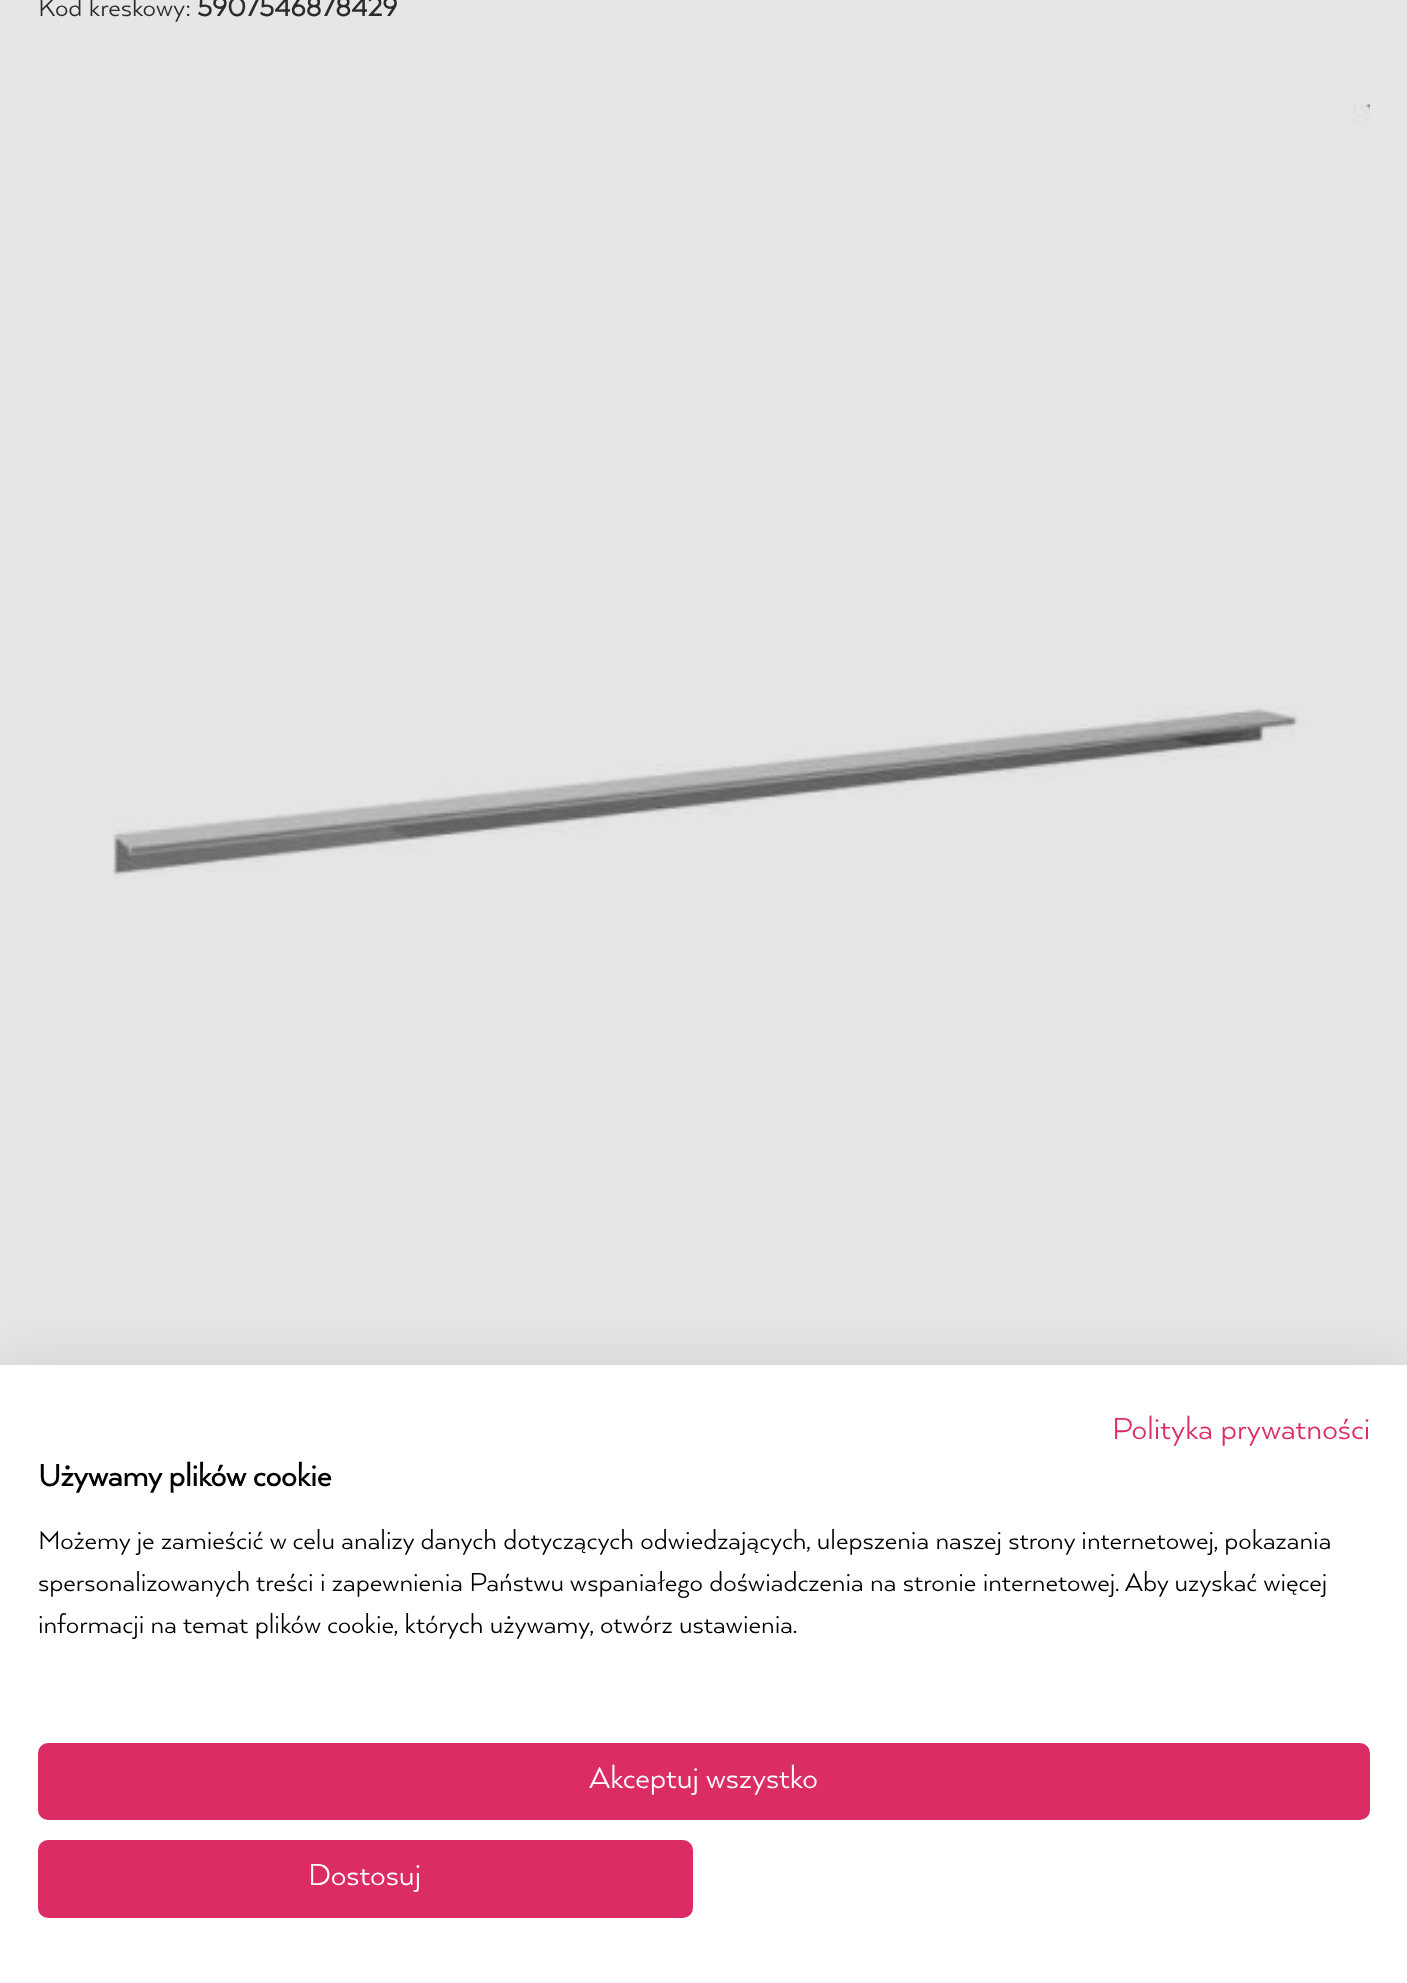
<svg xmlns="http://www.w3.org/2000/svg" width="1407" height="1983">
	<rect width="100%" height="100%" fill="#E6E6E6" />
	<text x="38" y="16" font-family="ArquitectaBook" font-size="30" fill="#292C2E">Kod kreskowy:</text>
	<text x="197" y="16" font-family="ArquitectaBook" font-size="30" font-weight="700" fill="#292C2E">5907546878429</text>
	<image x="112" y="104" width="1258" height="774" href="assets/img1.png" />
	<rect x="0" y="1365" width="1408" height="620" fill="#000000" fill-opacity="0.1" filter="blur(30px)" />
	<rect x="0" y="1365" width="1407" height="618" fill="#FFFFFF" />
	<text x="1112" y="1439" font-family="ArquitectaBook" font-size="35" fill="#DC2C64">Polityka prywatności</text>
	<text x="38" y="1486" font-family="ArquitectaBook" font-size="35" font-weight="700" fill="#000000">Używamy plików cookie</text>
	<g font-family="ArquitectaBook" font-size="30" fill="#000000">
		<text x="38" y="1549">Możemy je zamieścić w celu analizy danych dotyczących odwiedzających, ulepszenia naszej strony internetowej, pokazania</text>
		<text x="38" y="1591">spersonalizowanych treści i zapewnienia Państwu wspaniałego doświadczenia na stronie internetowej. Aby uzyskać więcej</text>
		<text x="38" y="1633">informacji na temat plików cookie, których używamy, otwórz ustawienia.</text>
	</g>
	<rect x="39.5" y="1744.5" width="1329" height="74" rx="8.5" fill="#DC2C64" stroke="#DC2C64" stroke-width="3" />
	<text x="589" y="1788" font-family="ArquitectaBook" font-size="35" fill="#FFFFFF">Akceptuj wszystko</text>
	<rect x="39.5" y="1841.5" width="652" height="75" rx="8.5" fill="#DC2C64" stroke="#DC2C64" stroke-width="3" />
	<text x="308" y="1885" font-family="ArquitectaBook" font-size="35" fill="#FFFFFF">Dostosuj</text>
</svg>
